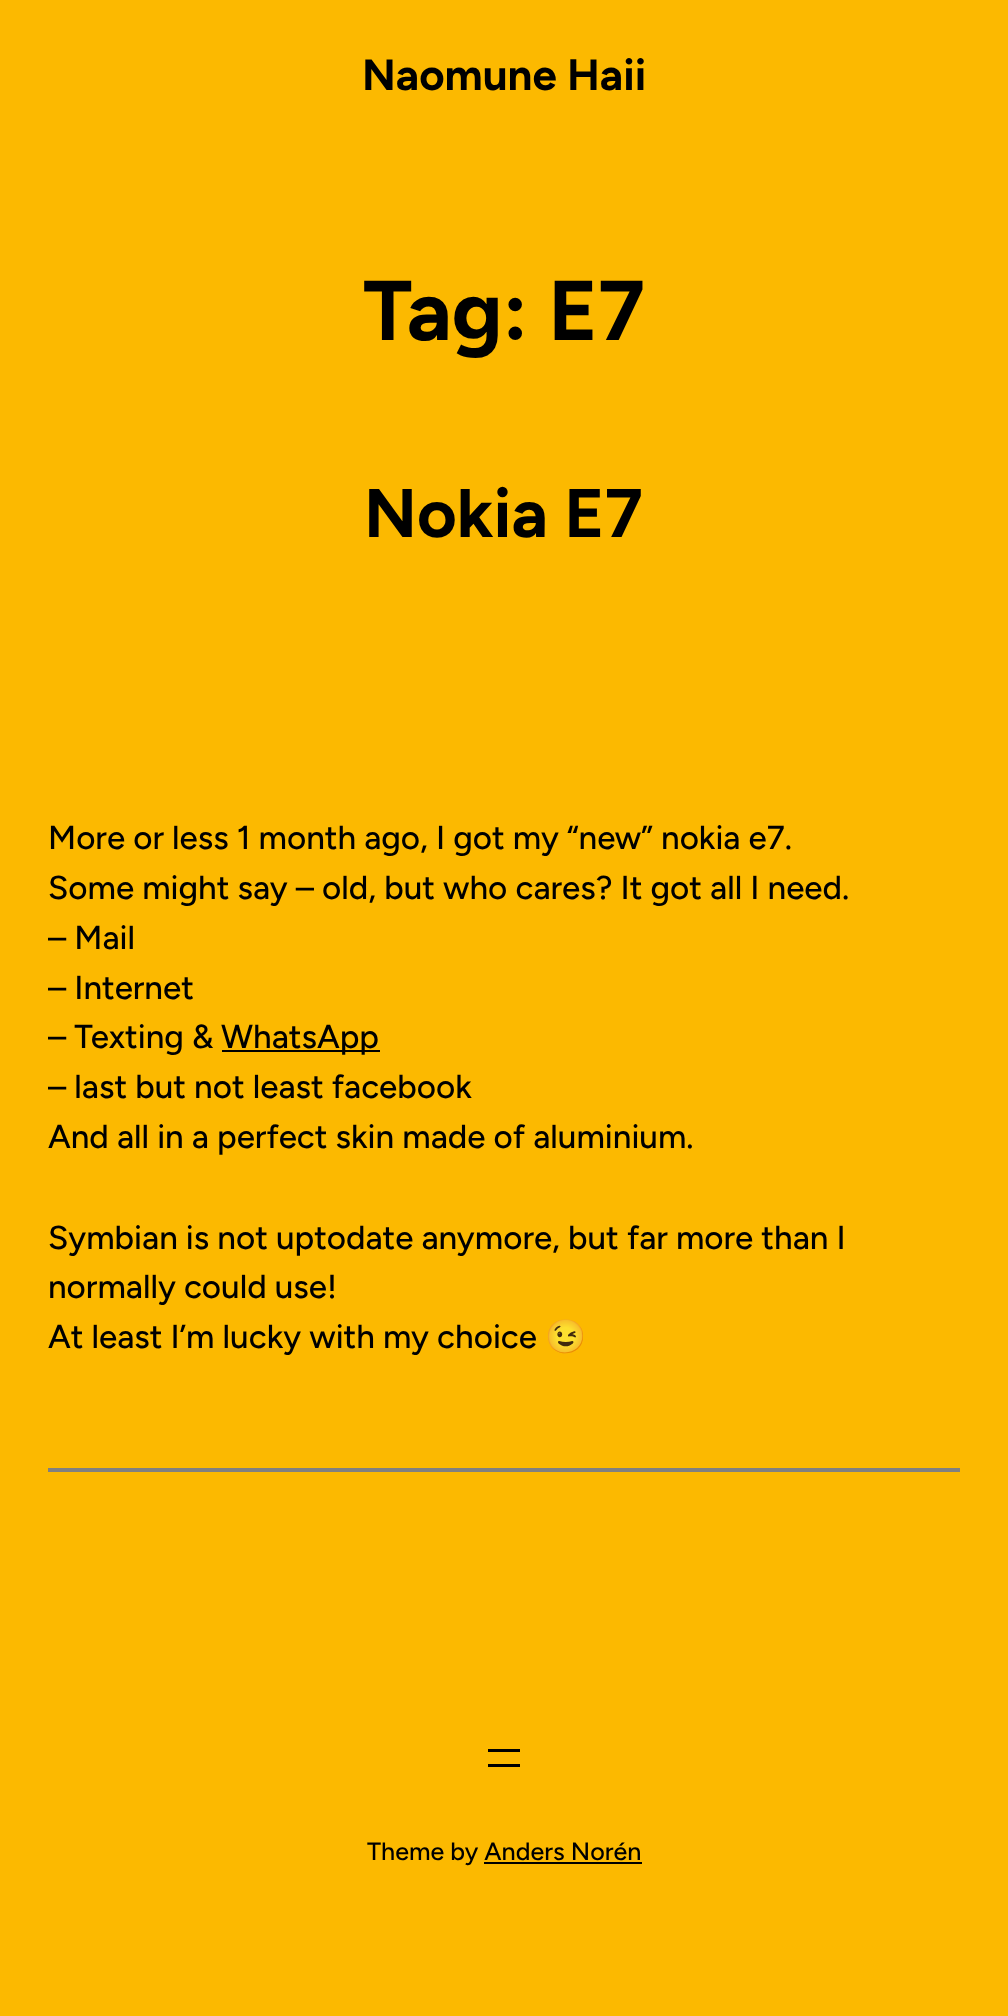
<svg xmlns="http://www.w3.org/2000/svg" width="1008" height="2016">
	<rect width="100%" height="100%" fill="#FCB900" />
	<text x="362" y="90" font-family="Figtree" font-size="43.75" font-weight="700" fill="#000000">Naomune Haii</text>
	<text x="363" y="340" font-family="Figtree" font-size="84.5" font-weight="700" fill="#000000">Tag: E7</text>
	<text x="364" y="537" font-family="Figtree" font-size="68.5" font-weight="700" fill="#000000">Nokia E7</text>
	<g font-family="Figtree" font-size="33.15" font-weight="500" fill="#000000">
		<text x="48" y="849">More or less 1 month ago, I got my “new” nokia e7.</text>
		<text x="48" y="899">Some might say – old, but who cares? It got all I need.</text>
		<text x="48" y="949">– Mail</text>
		<text x="48" y="999">– Internet</text>
		<text x="48" y="1048">– Texting &amp;</text>
	</g>
	<rect x="222" y="1050" width="158" height="2" fill="#000000" />
	<g font-family="Figtree" font-size="33.15" font-weight="500" fill="#000000">
		<text x="221" y="1048">WhatsApp</text>
		<text x="48" y="1098">– last but not least facebook</text>
		<text x="48" y="1148">And all in a perfect skin made of aluminium.</text>
		<text x="48" y="1249">Symbian is not uptodate anymore, but far more than I</text>
		<text x="48" y="1298">normally could use!</text>
		<text x="48" y="1348">At least I’m lucky with my choice</text>
	</g>
	<text x="545" y="1348" font-family="Noto Color Emoji" font-size="33.15" fill="#000000">😉</text>
	<rect x="48" y="1468" width="912" height="4" fill="#808080" />
	<rect x="488" y="1749" width="32" height="3" fill="#000000" />
	<rect x="488" y="1764" width="32" height="3" fill="#000000" />
	<text x="367" y="1860" font-family="Figtree" font-size="25.1" font-weight="500" fill="#000000">Theme by Anders Norén</text>
	<rect x="484" y="1862" width="158" height="2" fill="#000000" />
</svg>
